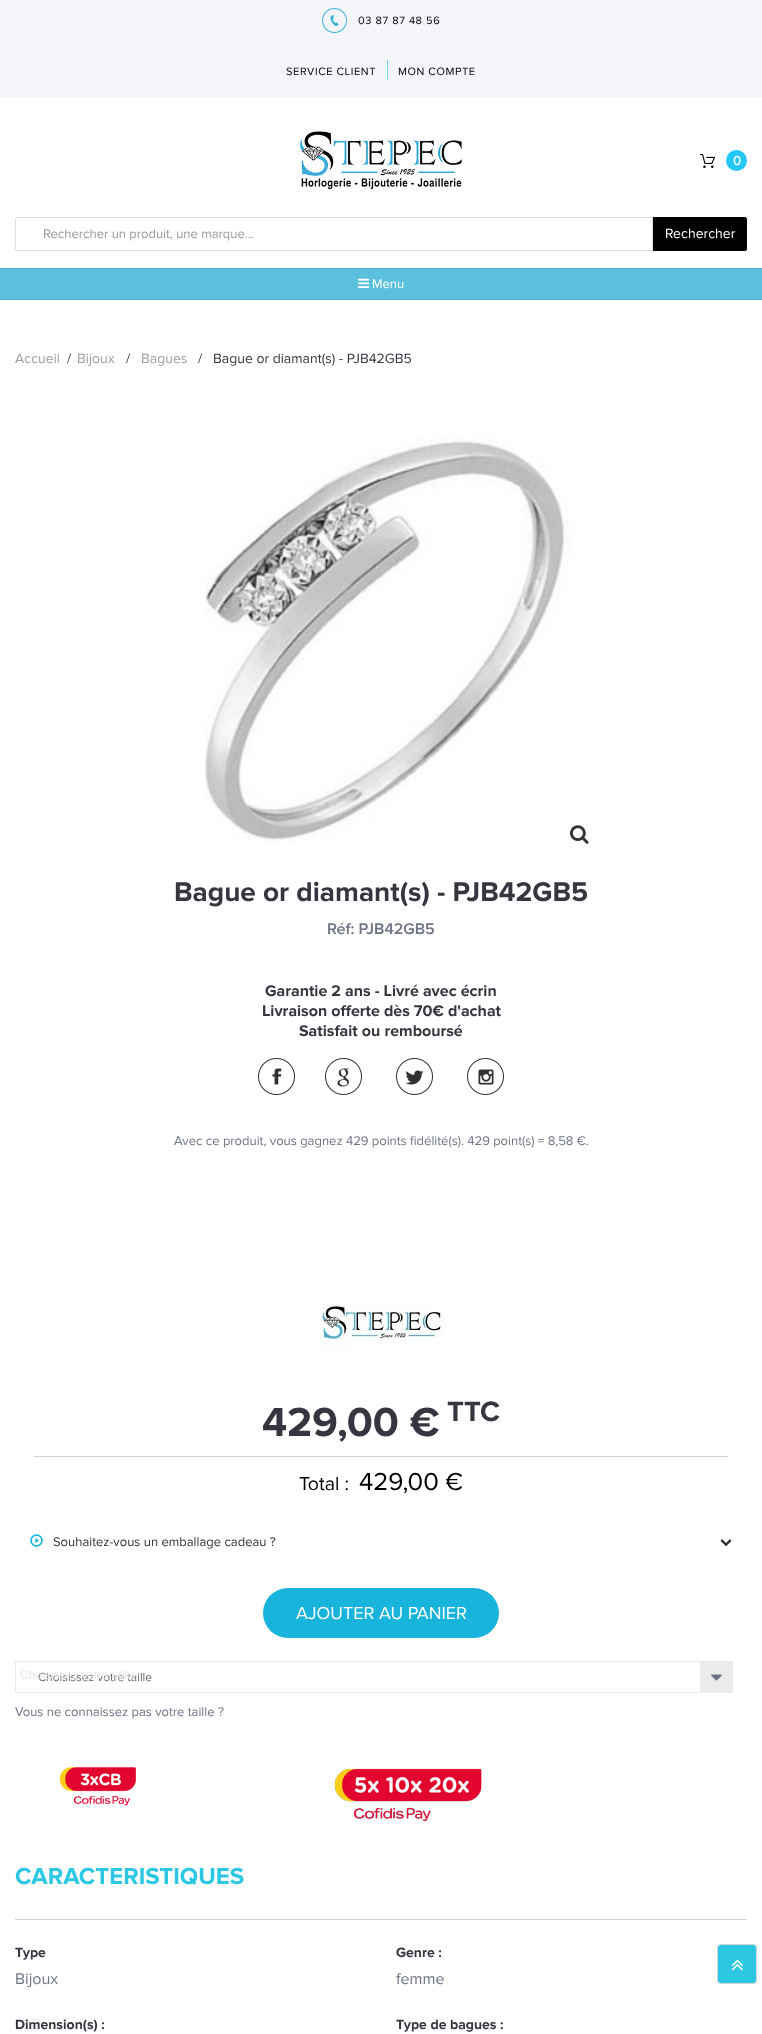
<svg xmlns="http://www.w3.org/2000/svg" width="762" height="2034">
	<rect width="100%" height="100%" fill="#FFFFFF" />
	<rect x="0" y="0" width="762" height="97" fill="#F3F5F8" />
	<image x="322" y="8" width="25" height="25" href="assets/img1.png" />
	<g font-family="Proxima Nova" font-size="11" letter-spacing="0.6" fill="#000000">
		<text x="358" y="24">03 87 87 48 56</text>
		<text x="286" y="75">SERVICE CLIENT</text>
	</g>
	<rect x="387" y="60" width="1" height="20" fill="#6BD2F4" />
	<text x="398" y="75" font-family="Proxima Nova" font-size="11" letter-spacing="0.6" fill="#000000">MON COMPTE</text>
	<image x="299" y="131" width="163" height="59" href="assets/img2.png" />
	<image x="700" y="154" width="15" height="14" href="assets/img3.png" />
	<circle cx="736.5" cy="160.5" r="10.5" fill="#24C8FD" />
	<text x="733" y="165" font-family="'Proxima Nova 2'" font-size="13" font-weight="700" fill="#FFFFFF">0</text>
	<rect x="16" y="217" width="637" height="1" fill="#DCDDDF" />
	<rect x="16" y="250" width="24" height="1" fill="#DCDDDF" />
	<rect x="15" y="218" width="1" height="32" fill="#DCDDDF" />
	<path d="M653 217H745C746 217 747 218 747 219V249C747 250 746 251 745 251H653Z" fill="#000000" />
	<text x="665" y="238" font-family="Proxima Nova" font-size="14" fill="#FFFFFF">Rechercher</text>
	<rect x="652" y="217" width="1" height="34" fill="#DCDDDF" />
	<rect x="40" y="250" width="613" height="1" fill="#DCDDDF" />
	<text x="43" y="238" font-family="Proxima Nova" font-size="13" fill="#999999">Rechercher un produit, une marque…</text>
	<rect x="-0.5" y="268.5" width="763" height="31" fill="#5BC0DE" stroke="#46B8DA" />
	<image x="358" y="278" width="12" height="10" href="assets/img4.png" />
	<text x="372" y="288" font-family="Proxima Nova" font-size="13" fill="#FFFFFF">Menu</text>
	<text x="15" y="363" font-family="Proxima Nova" font-size="14" fill="#9F9F9F">Accueil</text>
	<text x="67" y="363" font-family="Proxima Nova" font-size="14" fill="#35363F">/</text>
	<text x="77" y="363" font-family="Proxima Nova" font-size="14" fill="#9F9F9F">Bijoux</text>
	<text x="126" y="363" font-family="Proxima Nova" font-size="14" fill="#35363F">/</text>
	<text x="141" y="363" font-family="Proxima Nova" font-size="14" fill="#9F9F9F">Bagues</text>
	<g font-family="Proxima Nova" font-size="14" fill="#35363F">
		<text x="198" y="363">/</text>
		<text x="213" y="363">Bague or diamant(s) - PJB42GB5</text>
	</g>
	<image x="205" y="438" width="366" height="404" href="assets/img5.png" />
	<image x="570" y="825" width="19" height="19" href="assets/img6.png" />
	<text x="174" y="901" font-family="Proxima Nova" font-size="28" font-weight="700" fill="#35363F">Bague or diamant(s) - PJB42GB5</text>
	<text x="327" y="934" font-family="Proxima Nova" font-size="16" font-weight="600" fill="#6F7485">Réf: PJB42GB5</text>
	<g font-family="Proxima Nova" font-size="16" font-weight="700" fill="#35363F">
		<text x="265" y="996">Garantie 2 ans - Livré avec écrin</text>
		<text x="262" y="1016">Livraison offerte dès 70€ d'achat</text>
		<text x="299" y="1036">Satisfait ou remboursé</text>
	</g>
	<image x="258" y="1058" width="37" height="37" href="assets/img7.png" />
	<image x="325" y="1058" width="37" height="37" href="assets/img8.png" />
	<image x="396" y="1058" width="37" height="37" href="assets/img9.png" />
	<image x="467" y="1058" width="37" height="37" href="assets/img10.png" />
	<text x="174" y="1145" font-family="Proxima Nova" font-size="13" fill="#6F7485">Avec ce produit, vous gagnez 429 points fidélité(s). 429 point(s) = 8,58 €.</text>
	<image x="319" y="1304" width="125" height="48" href="assets/img11.png" />
	<text x="262" y="1436" font-family="Proxima Nova" font-size="42" font-weight="700" fill="#35363F">429,00 €</text>
	<text x="447" y="1421" font-family="Proxima Nova" font-size="29" font-weight="700" fill="#35363F">TTC</text>
	<rect x="34" y="1456" width="694" height="1" fill="#D2D0D0" />
	<text x="299" y="1490" font-family="Proxima Nova" font-size="19.5" fill="#000000">Total :</text>
	<text x="359" y="1490" font-family="Proxima Nova" font-size="25.5" fill="#000000">429,00 €</text>
	<image x="30" y="1534" width="13" height="13" href="assets/img12.png" />
	<text x="53" y="1546" font-family="Proxima Nova" font-size="13" fill="#333333">Souhaitez-vous un emballage cadeau ?</text>
	<image x="720" y="1539" width="12" height="8" href="assets/img13.png" />
	<rect x="263" y="1588" width="236" height="50" rx="25" fill="#18B4DB" />
	<text x="296" y="1619" font-family="Proxima Nova" font-size="18" fill="#FFFFFF">AJOUTER AU PANIER</text>
	<rect x="15.5" y="1661.5" width="717" height="31" fill="none" stroke="#EBEBEB" />
	<text x="38" y="1681" font-family="Proxima Nova" font-size="12" fill="#666666">Choisissez votre taille</text>
	<text x="20" y="1679" font-family="Liberation Sans" font-size="12" fill="#E8E8E8">Choisissez votre taille</text>
	<rect x="700" y="1662" width="32" height="30" fill="#EBEBEB" />
	<image x="711" y="1674" width="11" height="7" href="assets/img14.png" />
	<text x="15" y="1716" font-family="Proxima Nova" font-size="13" fill="#6F7485">Vous ne connaissez pas votre taille ?</text>
	<image x="60" y="1767" width="76" height="39" href="assets/img15.png" />
	<image x="334" y="1766" width="148" height="55" href="assets/img16.png" />
	<rect x="15" y="1919" width="732" height="1" fill="#D6D6D6" />
	<text x="15" y="1884" font-family="Proxima Nova" font-size="24" font-weight="700" fill="#2CC7E3">CARACTERISTIQUES</text>
	<text x="15" y="1957" font-family="Proxima Nova" font-size="14" font-weight="700" fill="#35363F">Type</text>
	<text x="15" y="1984" font-family="Proxima Nova" font-size="16" fill="#6F7485">Bijoux</text>
	<text x="396" y="1957" font-family="Proxima Nova" font-size="14" font-weight="700" fill="#35363F">Genre :</text>
	<text x="396" y="1984" font-family="Proxima Nova" font-size="16" fill="#6F7485">femme</text>
	<g font-family="Proxima Nova" font-size="14" font-weight="700" fill="#35363F">
		<text x="15" y="2029">Dimension(s) :</text>
		<text x="396" y="2029">Type de bagues :</text>
	</g>
	<rect x="717.5" y="1944.5" width="39" height="39" rx="3.5" fill="#2CC7E3" stroke="#D6D6D6" />
	<image x="731" y="1959" width="12" height="12" href="assets/img17.png" />
</svg>
